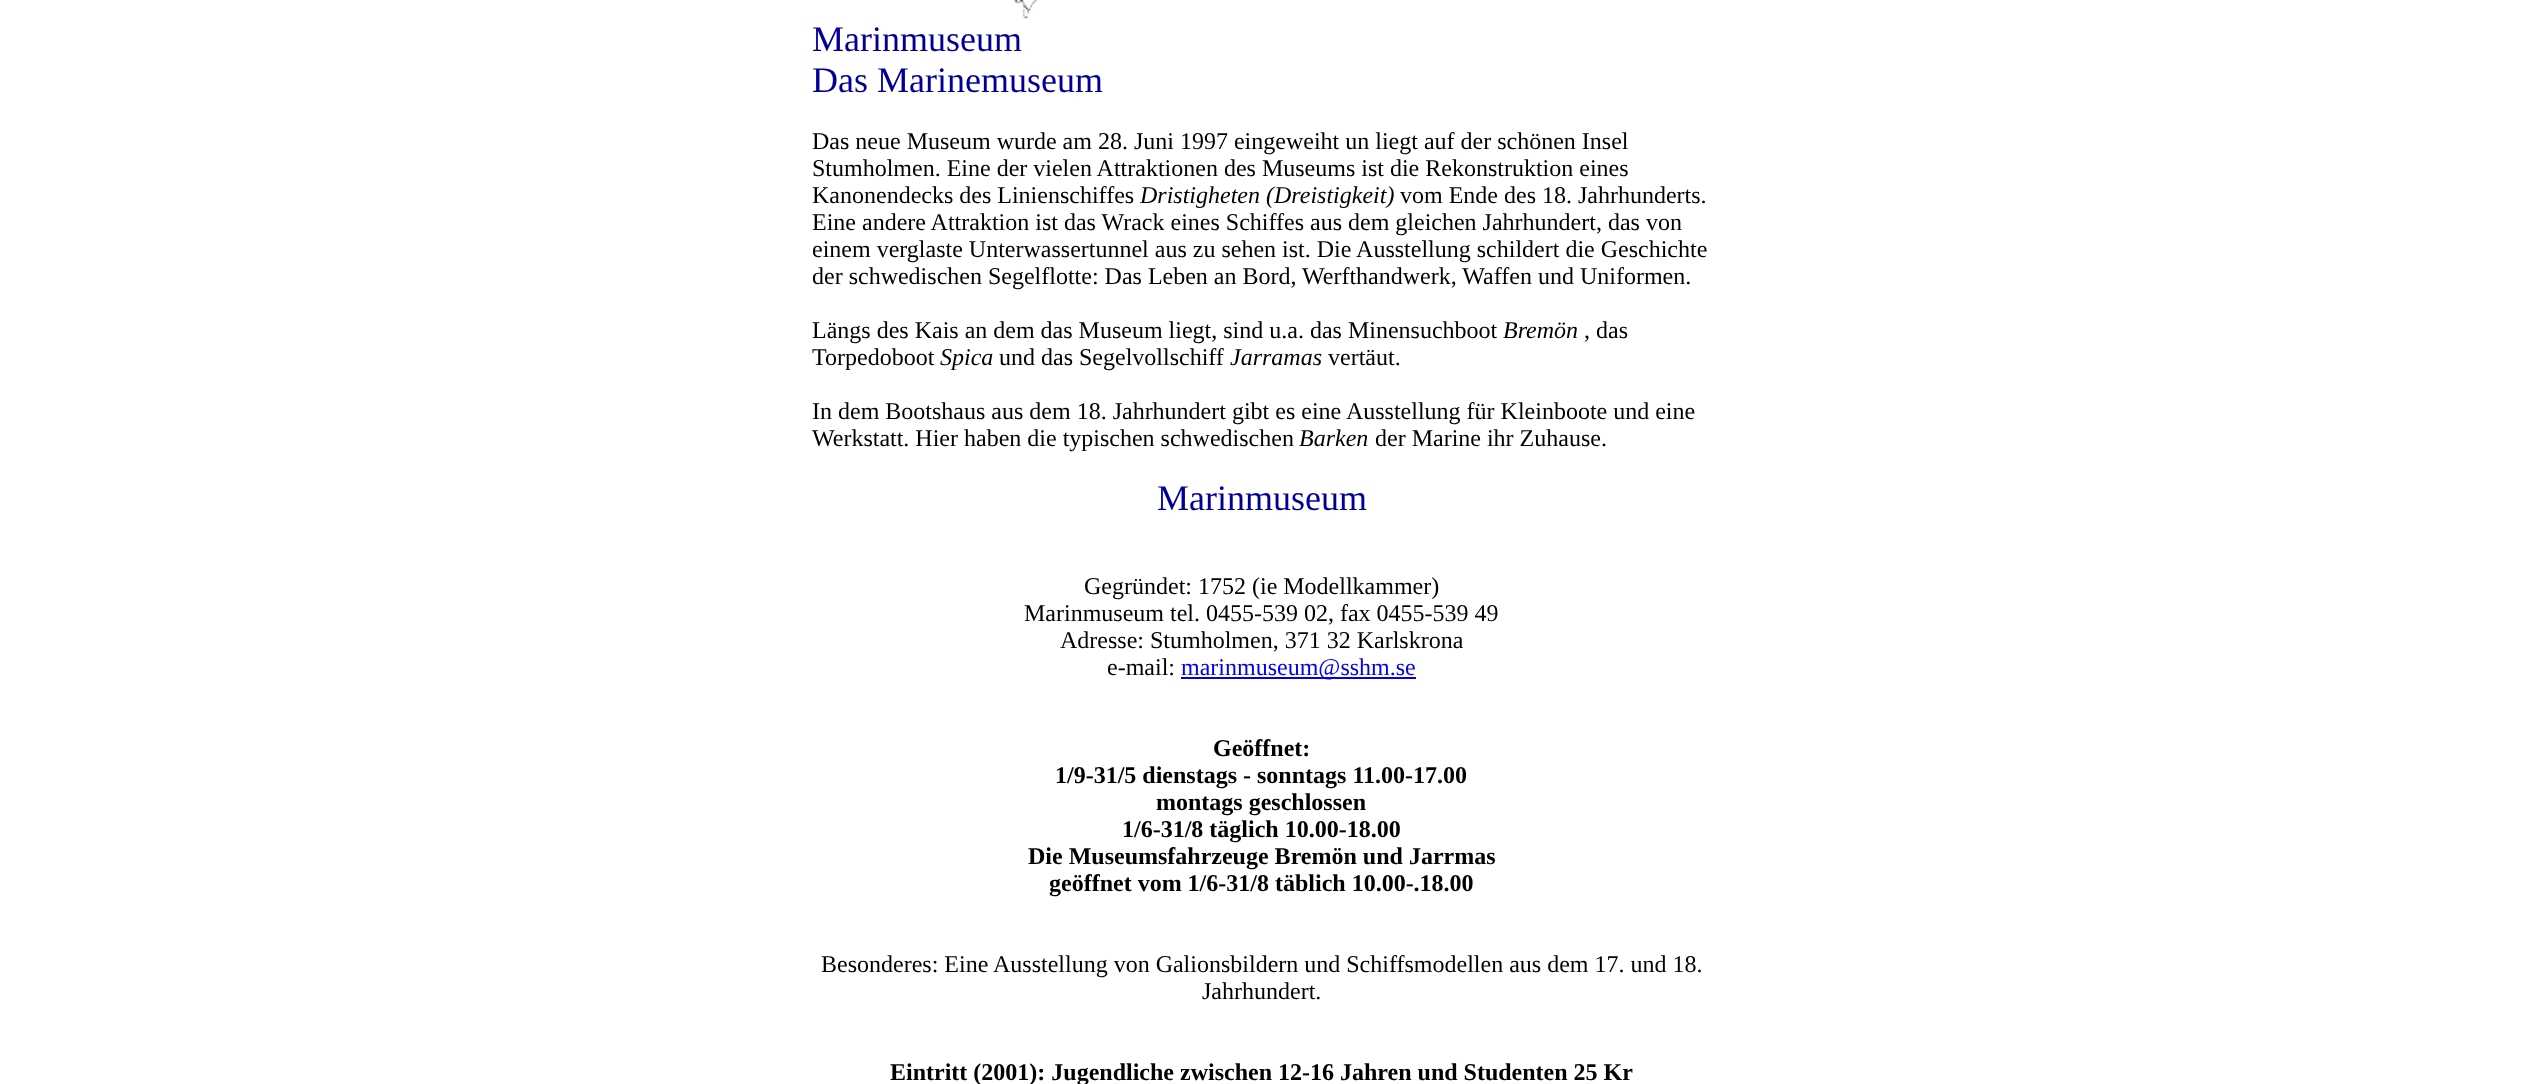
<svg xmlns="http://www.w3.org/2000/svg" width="2522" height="1084">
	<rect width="100%" height="100%" fill="#FFFFFF" />
	<image x="1013" y="0" width="24" height="19" href="assets/img1.png" />
	<g font-family="Liberation Serif" font-size="36" fill="#000099">
		<text x="812" y="51">Marinmuseum</text>
		<text x="812" y="92">Das Marinemuseum</text>
	</g>
	<g font-family="Liberation Serif" font-size="24" fill="#000000">
		<text x="812" y="149">Das neue Museum wurde am 28. Juni 1997 eingeweiht un liegt auf der schönen Insel</text>
		<text x="812" y="176">Stumholmen. Eine der vielen Attraktionen des Museums ist die Rekonstruktion eines</text>
		<text x="812" y="203">Kanonendecks des Linienschiffes</text>
	</g>
	<text x="1140" y="203" font-family="Liberation Serif" font-size="24" font-style="italic" fill="#000000">Dristigheten (Dreistigkeit)</text>
	<g font-family="Liberation Serif" font-size="24" fill="#000000">
		<text x="1400" y="203">vom Ende des 18. Jahrhunderts.</text>
		<text x="812" y="230">Eine andere Attraktion ist das Wrack eines Schiffes aus dem gleichen Jahrhundert, das von</text>
		<text x="812" y="257">einem verglaste Unterwassertunnel aus zu sehen ist. Die Ausstellung schildert die Geschichte</text>
		<text x="812" y="284">der schwedischen Segelflotte: Das Leben an Bord, Werfthandwerk, Waffen und Uniformen.</text>
		<text x="812" y="338">Längs des Kais an dem das Museum liegt, sind u.a. das Minensuchboot</text>
	</g>
	<text x="1503" y="338" font-family="Liberation Serif" font-size="24" font-style="italic" fill="#000000">Bremön</text>
	<g font-family="Liberation Serif" font-size="24" fill="#000000">
		<text x="1584" y="338">, das</text>
		<text x="812" y="365">Torpedoboot</text>
	</g>
	<text x="940" y="365" font-family="Liberation Serif" font-size="24" font-style="italic" fill="#000000">Spica</text>
	<text x="999" y="365" font-family="Liberation Serif" font-size="24" fill="#000000">und das Segelvollschiff</text>
	<text x="1230" y="365" font-family="Liberation Serif" font-size="24" font-style="italic" fill="#000000">Jarramas</text>
	<g font-family="Liberation Serif" font-size="24" fill="#000000">
		<text x="1328" y="365">vertäut.</text>
		<text x="812" y="419">In dem Bootshaus aus dem 18. Jahrhundert gibt es eine Ausstellung für Kleinboote und eine</text>
		<text x="812" y="446">Werkstatt. Hier haben die typischen schwedischen</text>
	</g>
	<text x="1299" y="446" font-family="Liberation Serif" font-size="24" font-style="italic" fill="#000000">Barken</text>
	<text x="1375" y="446" font-family="Liberation Serif" font-size="24" fill="#000000">der Marine ihr Zuhause.</text>
	<text x="1157" y="510" font-family="Liberation Serif" font-size="36" fill="#000099">Marinmuseum</text>
	<g font-family="Liberation Serif" font-size="24" fill="#000000">
		<text x="1084" y="594">Gegründet: 1752 (ie Modellkammer)</text>
		<text x="1024" y="621">Marinmuseum tel. 0455-539 02, fax 0455-539 49</text>
		<text x="1060" y="648">Adresse: Stumholmen, 371 32 Karlskrona</text>
		<text x="1107" y="675">e-mail:</text>
	</g>
	<rect x="1181" y="677" width="235" height="2" fill="#0000EE" />
	<text x="1181" y="675" font-family="Liberation Serif" font-size="24" fill="#0000EE">marinmuseum@sshm.se</text>
	<g font-family="Liberation Serif" font-size="24" font-weight="700" fill="#000000">
		<text x="1213" y="756">Geöffnet:</text>
		<text x="1055" y="783">1/9-31/5 dienstags - sonntags 11.00-17.00</text>
		<text x="1156" y="810">montags geschlossen</text>
		<text x="1122" y="837">1/6-31/8 täglich 10.00-18.00</text>
		<text x="1028" y="864">Die Museumsfahrzeuge Bremön und Jarrmas</text>
		<text x="1049" y="891">geöffnet vom 1/6-31/8 täblich 10.00-.18.00</text>
	</g>
	<g font-family="Liberation Serif" font-size="24" fill="#000000">
		<text x="821" y="972">Besonderes: Eine Ausstellung von Galionsbildern und Schiffsmodellen aus dem 17. und 18.</text>
		<text x="1202" y="999">Jahrhundert.</text>
	</g>
	<text x="890" y="1080" font-family="Liberation Serif" font-size="24" font-weight="700" fill="#000000">Eintritt (2001): Jugendliche zwischen 12-16 Jahren und Studenten 25 Kr</text>
</svg>
